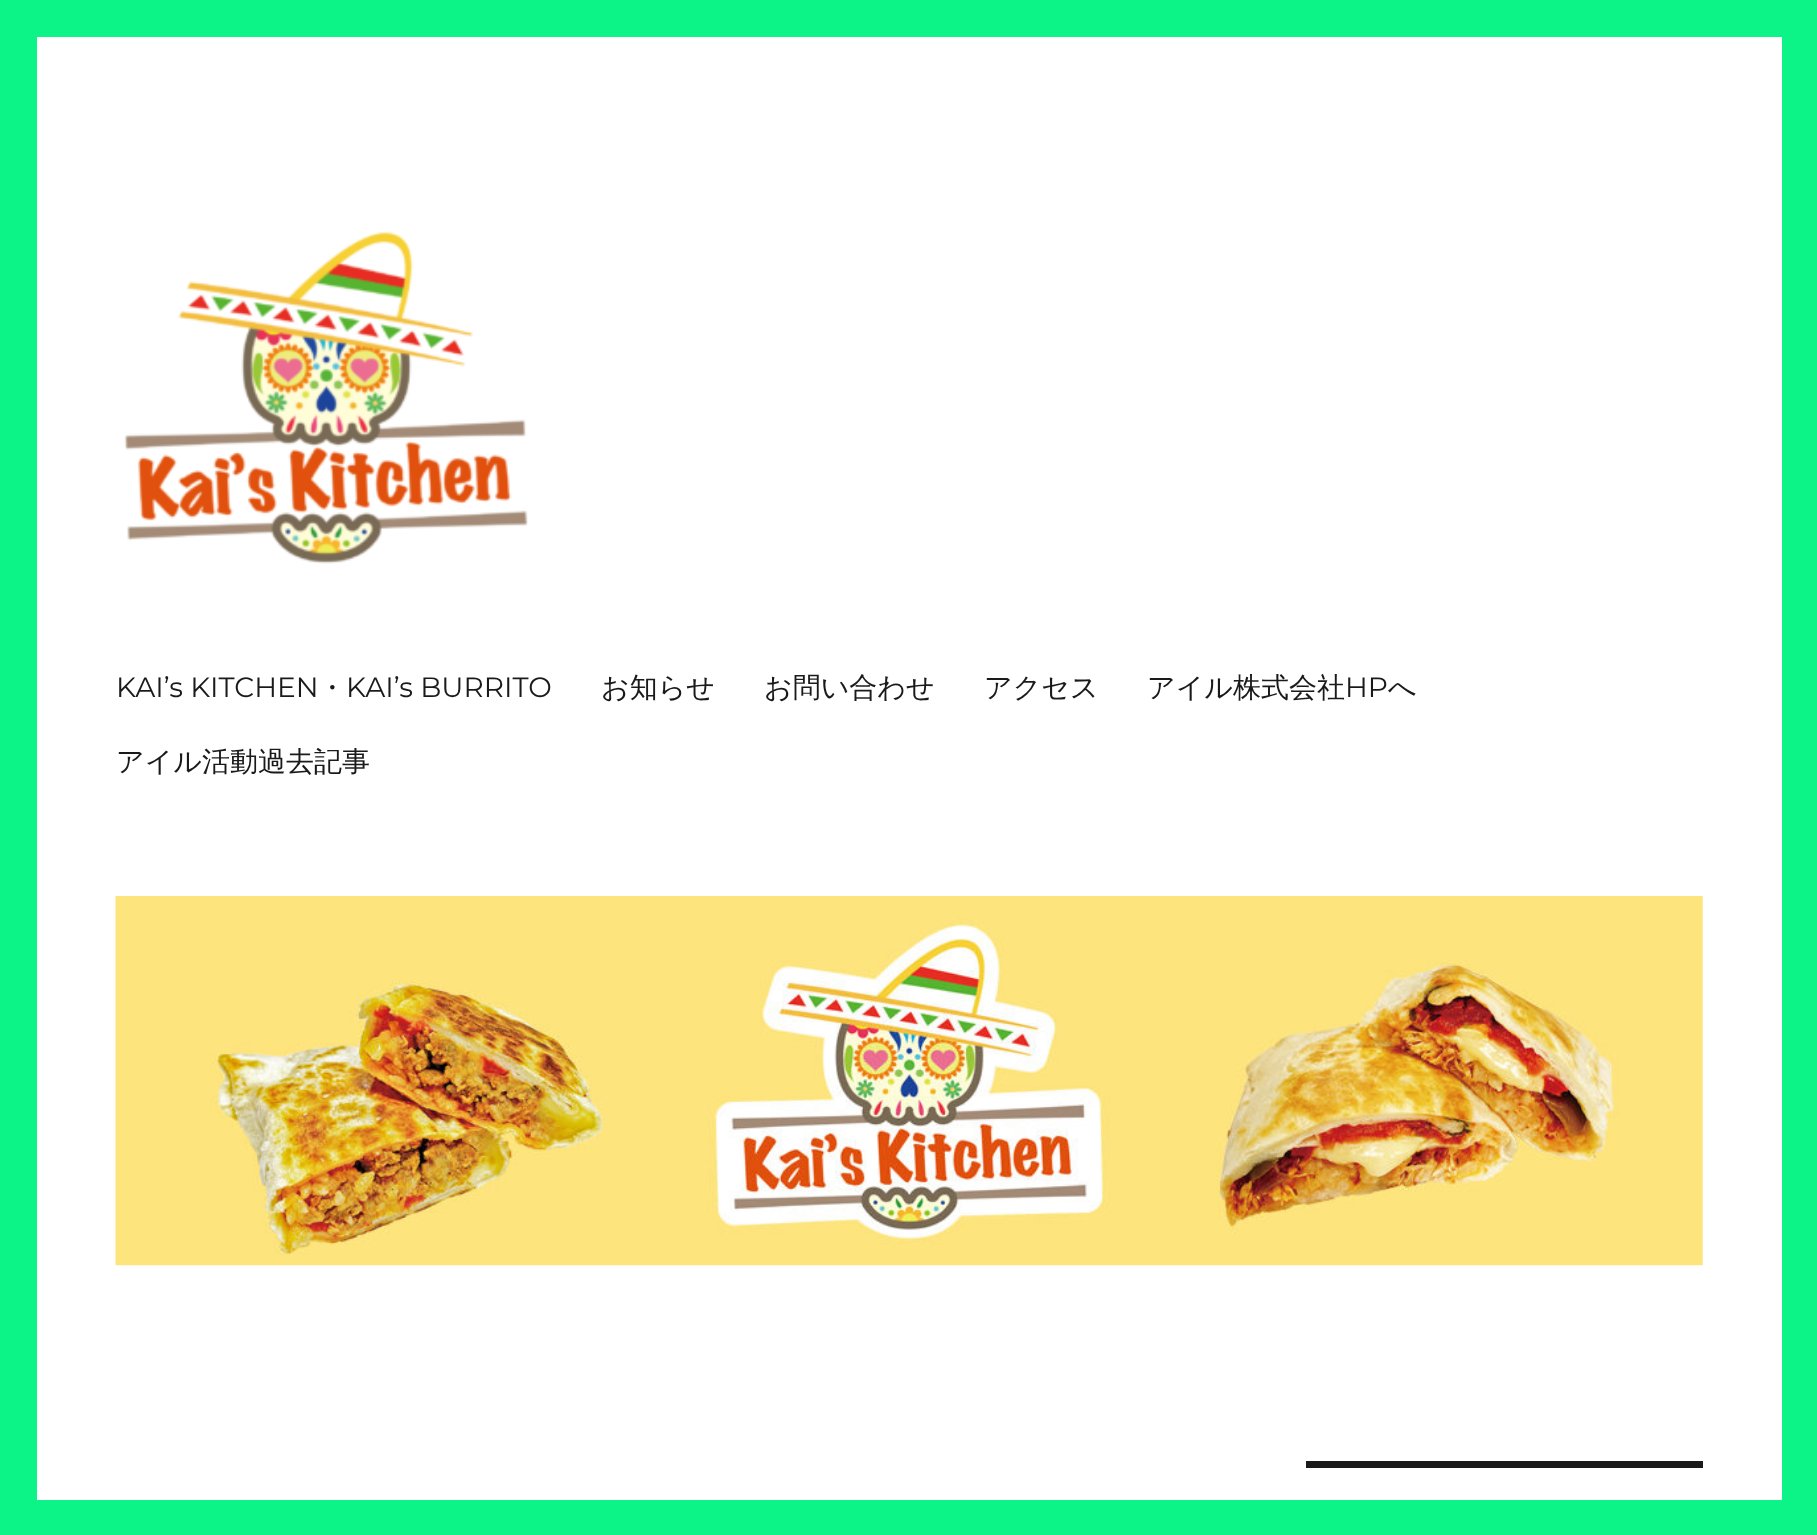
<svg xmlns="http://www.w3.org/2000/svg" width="1817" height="1535">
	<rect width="100%" height="100%" fill="#0CF488" />
	<rect x="37" y="37" width="1745" height="1463" fill="#FFFFFF" />
	<image x="124" y="231" width="404" height="333" href="assets/img1.png" />
	<text x="116" y="697" font-family="Montserrat" font-size="28" fill="#1A1A1A">KAI’s KITCHEN</text>
	<text x="318" y="697" font-family="WenQuanYi Zen Hei" font-size="28" font-weight="500" fill="#1A1A1A">・</text>
	<text x="346" y="697" font-family="Montserrat" font-size="28" fill="#1A1A1A">KAI’s BURRITO</text>
	<g font-family="WenQuanYi Zen Hei" font-size="28" font-weight="500" fill="#1A1A1A">
		<text x="601" y="697">お知らせ</text>
		<text x="764" y="697">お問い合わせ</text>
		<text x="984" y="697">アクセス</text>
		<text x="1147" y="697">アイル株式会社</text>
	</g>
	<text x="1345" y="697" font-family="Montserrat" font-size="28" fill="#1A1A1A">HP</text>
	<g font-family="WenQuanYi Zen Hei" font-size="28" font-weight="500" fill="#1A1A1A">
		<text x="1388" y="697">へ</text>
		<text x="116" y="771">アイル活動過去記事</text>
	</g>
	<image x="115" y="896" width="1588" height="370" href="assets/img2.png" />
	<rect x="1306" y="1461" width="397" height="7" fill="#1A1A1A" />
</svg>
